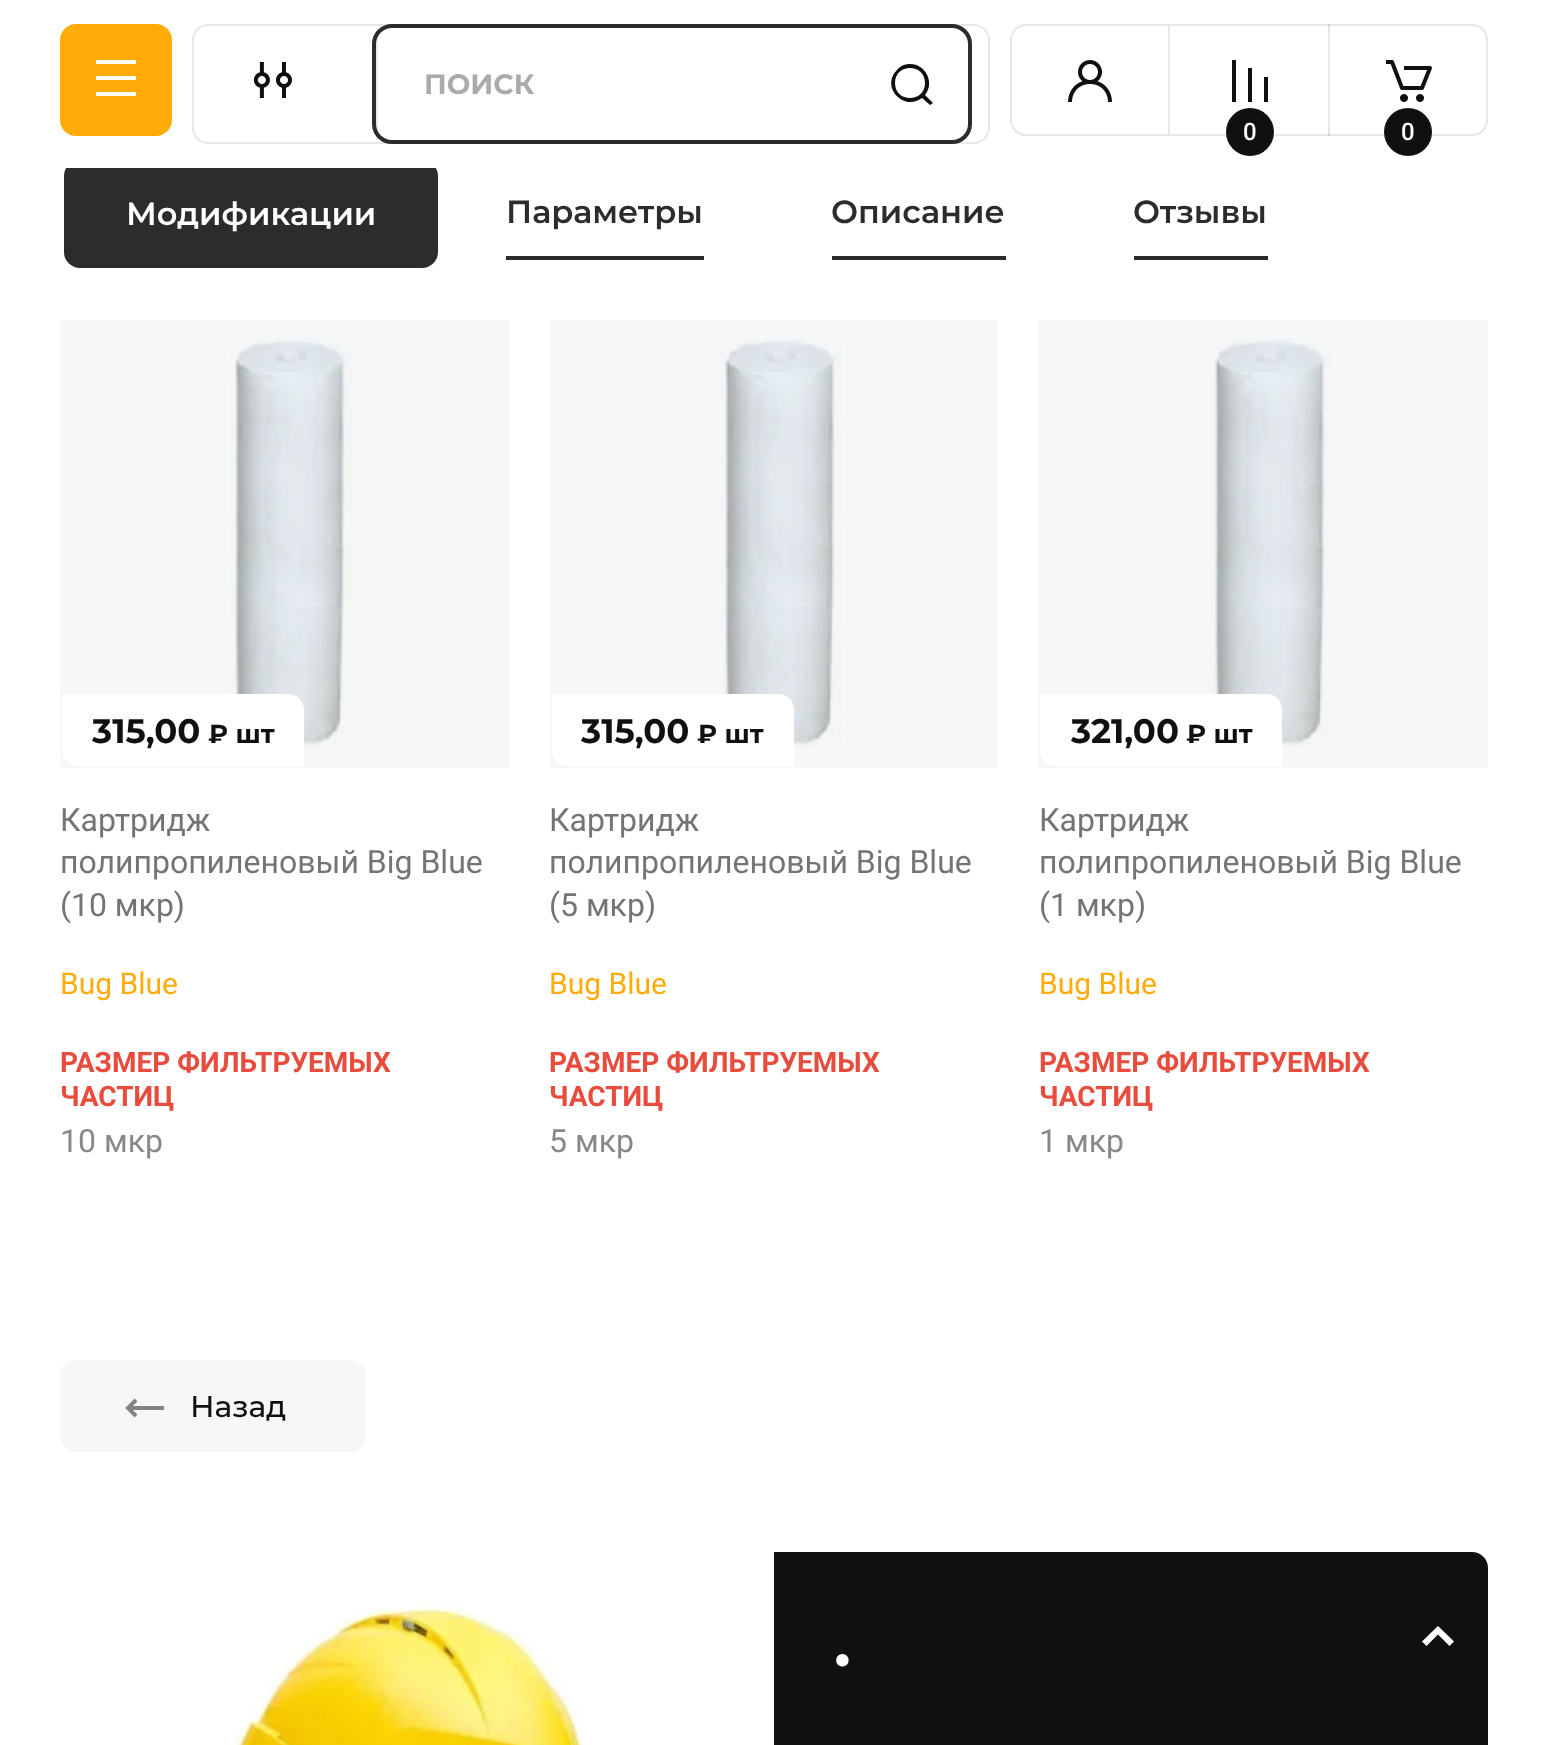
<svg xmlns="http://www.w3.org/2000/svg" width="1547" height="1745">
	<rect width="100%" height="100%" fill="#FFFFFF" />
	<rect x="65" y="161" width="372" height="106" rx="15" fill="#2C2C2C" stroke="#2C2C2C" stroke-width="2" />
	<rect x="66" y="160" width="370" height="8" fill="#FFFFFF" />
	<rect x="60" y="24" width="112" height="112" rx="16" fill="#FFAB09" />
	<path d="M96 60H136V64H96ZM96 76H136V80H96ZM136 92H96V96H136Z" fill="#FFFFFF" />
	<rect x="193" y="25" width="796" height="118" rx="15" fill="none" stroke="#E7E7E7" stroke-width="2" />
	<image x="253" y="62" width="39" height="36" href="assets/img1.png" />
	<rect x="374" y="26" width="596" height="116" rx="18" fill="none" stroke="#2C2C2C" stroke-width="4" />
	<rect x="376" y="28" width="2" height="112" fill="#101010" fill-opacity="0.1" />
	<text x="424" y="94" font-family="Montserrat" font-size="28" font-weight="700" fill="#ABABAB">ПОИСК</text>
	<path d="M910 64C905 64 900 66 897 70C880 87 904 112 922 98L930 105L933 103L925 95C935 83 926 64 910 64ZM895 83C895 63 925 63 925 83C925 103 895 103 895 83Z" fill="#101010" />
	<path d="M1026 25H1169V135H1026C1017.5 135 1011 128.5 1011 120V40C1011 31.5 1017.5 25 1026 25Z" fill="none" stroke="#E7E7E7" stroke-width="2" />
	<image x="1068" y="60" width="44" height="42" href="assets/img2.png" />
	<rect x="1170" y="24" width="160" height="2" fill="#E7E7E7" />
	<rect x="1170" y="134" width="160" height="2" fill="#E7E7E7" />
	<path d="M1268 102V77H1264V102ZM1252 68V102H1248V68ZM1236 60V102H1232V60Z" fill="#101010" />
	<circle cx="1250" cy="132" r="24" fill="#101010" />
	<text x="1243" y="140" font-family="Roboto" font-size="24" font-weight="500" fill="#FFFFFF">0</text>
	<path d="M1329 25H1472C1480.5 25 1487 31.5 1487 40V120C1487 128.5 1480.5 135 1472 135H1329Z" fill="none" stroke="#101010" stroke-opacity="0.1" stroke-width="2" />
	<image x="1386" y="60" width="46" height="42" href="assets/img3.png" />
	<circle cx="1408" cy="132" r="24" fill="#101010" />
	<text x="1401" y="140" font-family="Roboto" font-size="24" font-weight="500" fill="#FFFFFF">0</text>
	<text x="126" y="225" font-family="Montserrat" font-size="32" font-weight="600" fill="#FFFFFF">Модификации</text>
	<text x="506" y="223" font-family="Montserrat" font-size="32" font-weight="600" fill="#2C2C2C">Параметры</text>
	<rect x="506" y="256" width="198" height="4" fill="#2C2C2C" />
	<text x="831" y="223" font-family="Montserrat" font-size="32" font-weight="600" fill="#2C2C2C">Описание</text>
	<rect x="832" y="256" width="174" height="4" fill="#2C2C2C" />
	<text x="1133" y="223" font-family="Montserrat" font-size="32" font-weight="600" fill="#2C2C2C">Отзывы</text>
	<rect x="1134" y="256" width="134" height="4" fill="#2C2C2C" />
	<image x="229" y="338" width="123" height="410" href="assets/img4.png" />
	<rect x="60" y="320" width="450" height="448" fill="#000000" fill-opacity="0.03" />
	<path d="M62 694H288C297 694 304 701 304 710V766H78C69 766 62 759 62 750Z" fill="#FFFFFF" />
	<text x="92" y="743" font-family="Montserrat" font-size="34" font-weight="700" fill="#101010">315,00</text>
	<text x="208" y="743" font-family="Montserrat" font-size="26" font-weight="700" fill="#101010">₽ шт</text>
	<g font-family="Roboto" font-size="32" fill="#747474">
		<text x="60" y="831">Картридж</text>
		<text x="60" y="873">полипропиленовый Big Blue</text>
		<text x="60" y="916">(10 мкр)</text>
	</g>
	<text x="60" y="994" font-family="Roboto" font-size="30" fill="#FFAB09">Bug Blue</text>
	<g font-family="Roboto" font-size="28" font-weight="700" fill="#E74C3C">
		<text x="60" y="1072">РАЗМЕР ФИЛЬТРУЕМЫХ</text>
		<text x="60" y="1106">ЧАСТИЦ</text>
	</g>
	<text x="60" y="1152" font-family="Roboto" font-size="32" fill="#888888">10 мкр</text>
	<image x="719" y="338" width="123" height="410" href="assets/img5.png" />
	<rect x="550" y="320" width="448" height="448" fill="#000000" fill-opacity="0.03" />
	<path d="M552 694H778C787 694 794 701 794 710V766H568C559 766 552 759 552 750Z" fill="#FFFFFF" />
	<text x="581" y="743" font-family="Montserrat" font-size="34" font-weight="700" fill="#101010">315,00</text>
	<text x="697" y="743" font-family="Montserrat" font-size="26" font-weight="700" fill="#101010">₽ шт</text>
	<g font-family="Roboto" font-size="32" fill="#747474">
		<text x="549" y="831">Картридж</text>
		<text x="549" y="873">полипропиленовый Big Blue</text>
		<text x="549" y="916">(5 мкр)</text>
	</g>
	<text x="549" y="994" font-family="Roboto" font-size="30" fill="#FFAB09">Bug Blue</text>
	<g font-family="Roboto" font-size="28" font-weight="700" fill="#E74C3C">
		<text x="549" y="1072">РАЗМЕР ФИЛЬТРУЕМЫХ</text>
		<text x="549" y="1106">ЧАСТИЦ</text>
	</g>
	<text x="549" y="1152" font-family="Roboto" font-size="32" fill="#888888">5 мкр</text>
	<image x="1209" y="338" width="123" height="410" href="assets/img6.png" />
	<rect x="1038" y="320" width="450" height="448" fill="#000000" fill-opacity="0.03" />
	<path d="M1040 694H1266C1275 694 1282 701 1282 710V766H1056C1047 766 1040 759 1040 750Z" fill="#FFFFFF" />
	<text x="1071" y="743" font-family="Montserrat" font-size="34" font-weight="700" fill="#101010">321,00</text>
	<text x="1186" y="743" font-family="Montserrat" font-size="26" font-weight="700" fill="#101010">₽ шт</text>
	<g font-family="Roboto" font-size="32" fill="#747474">
		<text x="1039" y="831">Картридж</text>
		<text x="1039" y="873">полипропиленовый Big Blue</text>
		<text x="1039" y="916">(1 мкр)</text>
	</g>
	<text x="1039" y="994" font-family="Roboto" font-size="30" fill="#FFAB09">Bug Blue</text>
	<g font-family="Roboto" font-size="28" font-weight="700" fill="#E74C3C">
		<text x="1039" y="1072">РАЗМЕР ФИЛЬТРУЕМЫХ</text>
		<text x="1039" y="1106">ЧАСТИЦ</text>
	</g>
	<text x="1039" y="1152" font-family="Roboto" font-size="32" fill="#888888">1 мкр</text>
	<rect x="60" y="1360" width="306" height="92" rx="16" fill="#F7F7F7" />
	<image x="125" y="1398" width="39" height="20" href="assets/img7.png" />
	<text x="190" y="1417" font-family="Montserrat" font-size="30" font-weight="500" fill="#101010">Назад</text>
	<image x="230" y="1604" width="353" height="141" href="assets/img8.png" />
	<path d="M774 1552H1472C1481 1552 1488 1559 1488 1568V1745C1488 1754 1481 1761 1472 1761H774Z" fill="#101010" />
	<text x="834" y="1666" font-family="Montserrat" font-size="64" font-weight="700" fill="#FFFFFF">.</text>
	<path d="M1422 1641.5L1426.5 1646L1438 1634.5L1449.5 1646L1454 1641.5L1438 1626Z" fill="#FFFFFF" />
</svg>
